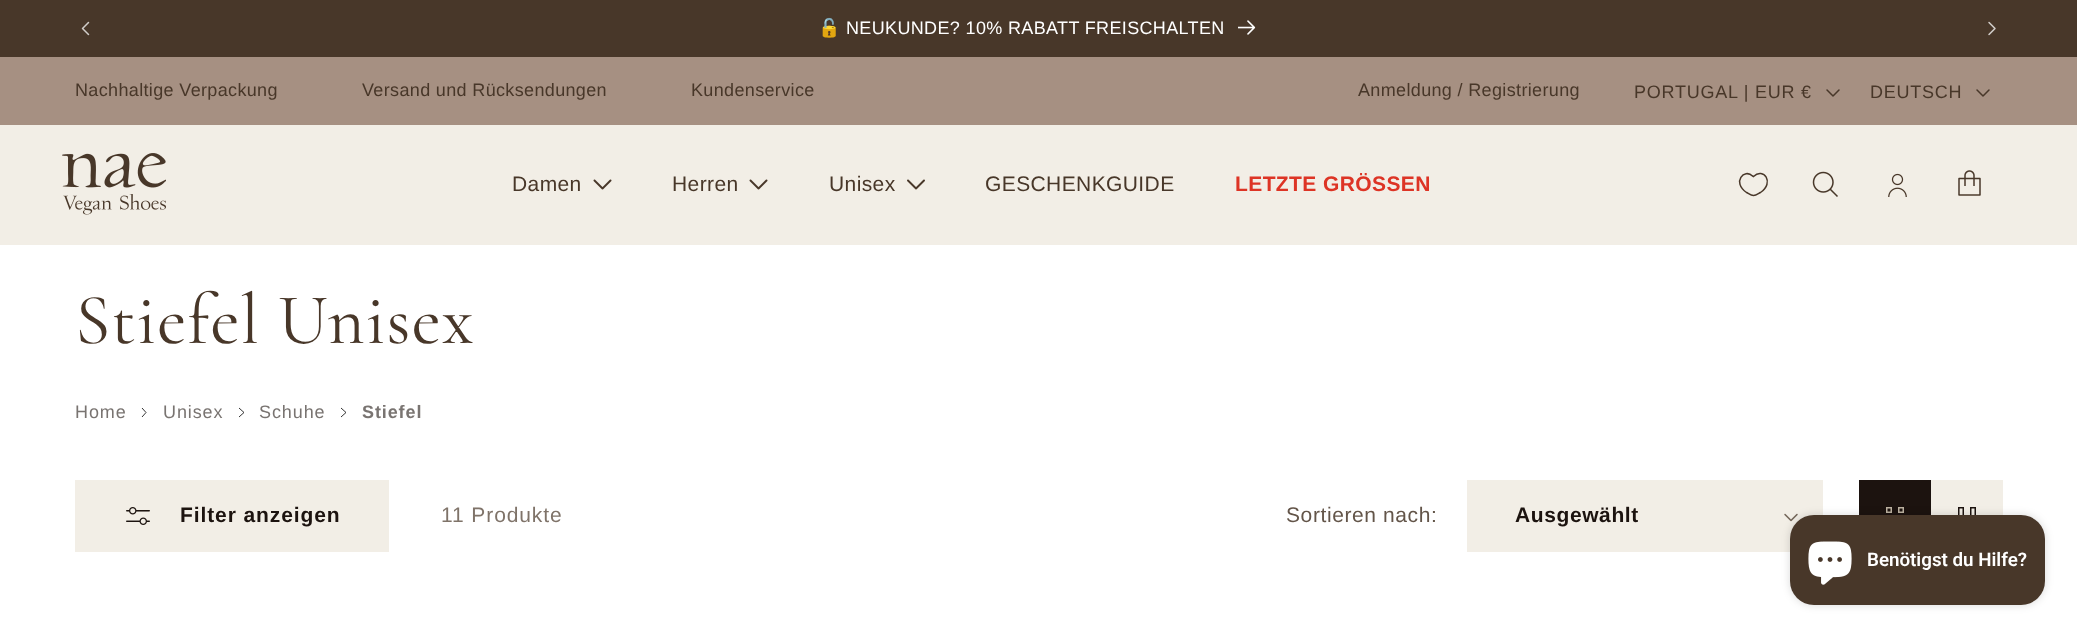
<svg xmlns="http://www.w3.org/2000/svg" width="2077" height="635">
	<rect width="100%" height="100%" fill="#FFFFFF" />
	<rect x="0" y="0" width="2077" height="57" fill="#483729" />
	<image x="81" y="21" width="9" height="15" href="assets/img1.png" />
	<text x="818" y="34" font-family="Noto Color Emoji" font-size="18" letter-spacing="0.35" fill="#FFFFFF">🔓</text>
	<text x="846" y="34" font-family="Liberation Sans" font-size="18" letter-spacing="0.35" fill="#FFFFFF">NEUKUNDE? 10% RABATT FREISCHALTEN</text>
	<image x="1238" y="20" width="18" height="15" href="assets/img2.png" />
	<image x="1988" y="21" width="8" height="15" href="assets/img3.png" />
	<rect x="0" y="57" width="2077" height="68" fill="#A69082" />
	<g font-family="Liberation Sans" font-size="18" letter-spacing="0.35" fill="#483729">
		<text x="75" y="96">Nachhaltige Verpackung</text>
		<text x="362" y="96">Versand und Rücksendungen</text>
		<text x="691" y="96">Kundenservice</text>
		<text x="1358" y="96">Anmeldung / Registrierung</text>
	</g>
	<text x="1634" y="98" font-family="Liberation Sans" font-size="18" letter-spacing="0.75" fill="#483729">PORTUGAL | EUR €</text>
	<image x="1826" y="89" width="14" height="8" href="assets/img4.png" />
	<text x="1870" y="98" font-family="Liberation Sans" font-size="18" letter-spacing="0.75" fill="#483729">DEUTSCH</text>
	<image x="1976" y="89" width="14" height="8" href="assets/img4.png" />
	<rect x="0" y="125" width="2077" height="120" fill="#F2EEE6" />
	<image x="62" y="153" width="104" height="62" href="assets/img5.png" />
	<text x="512" y="191" font-family="Liberation Sans" font-size="21" letter-spacing="0.4" fill="#483729">Damen</text>
	<image x="593" y="179" width="19" height="11" href="assets/img6.png" />
	<text x="672" y="191" font-family="Liberation Sans" font-size="21" letter-spacing="0.4" fill="#483729">Herren</text>
	<image x="749" y="179" width="19" height="11" href="assets/img6.png" />
	<text x="829" y="191" font-family="Liberation Sans" font-size="21" letter-spacing="0.4" fill="#483729">Unisex</text>
	<image x="907" y="179" width="18" height="11" href="assets/img7.png" />
	<text x="985" y="191" font-family="Liberation Sans" font-size="21" letter-spacing="0.4" fill="#483729">GESCHENKGUIDE</text>
	<text x="1235" y="191" font-family="Liberation Sans" font-size="21" font-weight="700" letter-spacing="0.4" fill="#DD3425">LETZTE GRÖSSEN</text>
	<path d="M1752.5 176L1753.5 176.5C1763.5 167 1775 182.5 1760.5 192.5C1758.5 193.5 1756 195.5 1753.5 195.5C1751 195.5 1748.5 193.5 1746.5 192.5C1731.5 182 1744.5 168 1752.5 176Z" fill="none" stroke="#483729" stroke-width="1.5" />
	<image x="1812" y="171" width="26" height="26" href="assets/img8.png" />
	<image x="1888" y="173" width="19" height="24" href="assets/img9.png" />
	<image x="1958" y="170" width="23" height="26" href="assets/img10.png" />
	<text x="75" y="343" font-family="Cormorant" font-size="72" letter-spacing="0.9" fill="#483729">Stiefel Unisex</text>
	<text x="75" y="418" font-family="Liberation Sans" font-size="18" letter-spacing="0.9" fill="#797471">Home</text>
	<path d="M142 417L146 412.5L142 408" fill="none" stroke="#000000" stroke-width="0.8" stroke-linejoin="round" />
	<text x="163" y="418" font-family="Liberation Sans" font-size="18" letter-spacing="0.9" fill="#797471">Unisex</text>
	<path d="M239 417L244 412.5L239 408" fill="none" stroke="#000000" stroke-width="0.8" stroke-linejoin="round" />
	<text x="259" y="418" font-family="Liberation Sans" font-size="18" letter-spacing="0.9" fill="#797471">Schuhe</text>
	<path d="M341 417L346 412.5L341 408" fill="none" stroke="#000000" stroke-width="0.8" stroke-linejoin="round" />
	<text x="362" y="418" font-family="Liberation Sans" font-size="18" font-weight="700" letter-spacing="0.9" fill="#797471">Stiefel</text>
	<rect x="75" y="480" width="314" height="72" fill="#F2EEE6" />
	<image x="126" y="507" width="24" height="18" href="assets/img11.png" />
	<text x="180" y="522" font-family="Liberation Sans" font-size="21" font-weight="700" letter-spacing="0.9" fill="#1C130F">Filter anzeigen</text>
	<text x="441" y="522" font-family="Liberation Sans" font-size="21" letter-spacing="0.9" fill="#7F7369">11 Produkte</text>
	<text x="1286" y="522" font-family="Liberation Sans" font-size="21" letter-spacing="0.6" fill="#635549">Sortieren nach:</text>
	<rect x="1467" y="480" width="356" height="72" fill="#F2EEE6" />
	<text x="1515" y="522" font-family="Liberation Sans" font-size="21" font-weight="700" letter-spacing="0.6" fill="#1C130F">Ausgewählt</text>
	<image x="1784" y="513" width="14" height="9" href="assets/img12.png" />
	<rect x="1859" y="480" width="72" height="35" fill="#1C130F" />
	<rect x="1898.75" y="507.75" width="4.5" height="4.5" fill="none" stroke="#BCB2A1" stroke-width="1.5" />
	<rect x="1886.75" y="507.75" width="4.5" height="4.5" fill="none" stroke="#BCB2A1" stroke-width="1.5" />
	<rect x="1931" y="480" width="72" height="35" fill="#F2EEE6" />
	<rect x="1970.75" y="507.75" width="4.5" height="16.5" fill="none" stroke="#1C130F" stroke-width="1.5" />
	<rect x="1958.75" y="507.75" width="4.5" height="16.5" fill="none" stroke="#1C130F" stroke-width="1.5" />
	<rect x="1790" y="515" width="255" height="90" rx="24" fill="#000000" fill-opacity="0.15" filter="blur(4px)" />
	<rect x="1790" y="515" width="255" height="90" rx="24" fill="#483729" />
	<image x="1808" y="541" width="44" height="44" href="assets/img13.png" />
	<text x="1867" y="566" font-family="Roboto" font-size="18.75" font-weight="600" fill="#FFFFFF">Benötigst du Hilfe?</text>
</svg>
